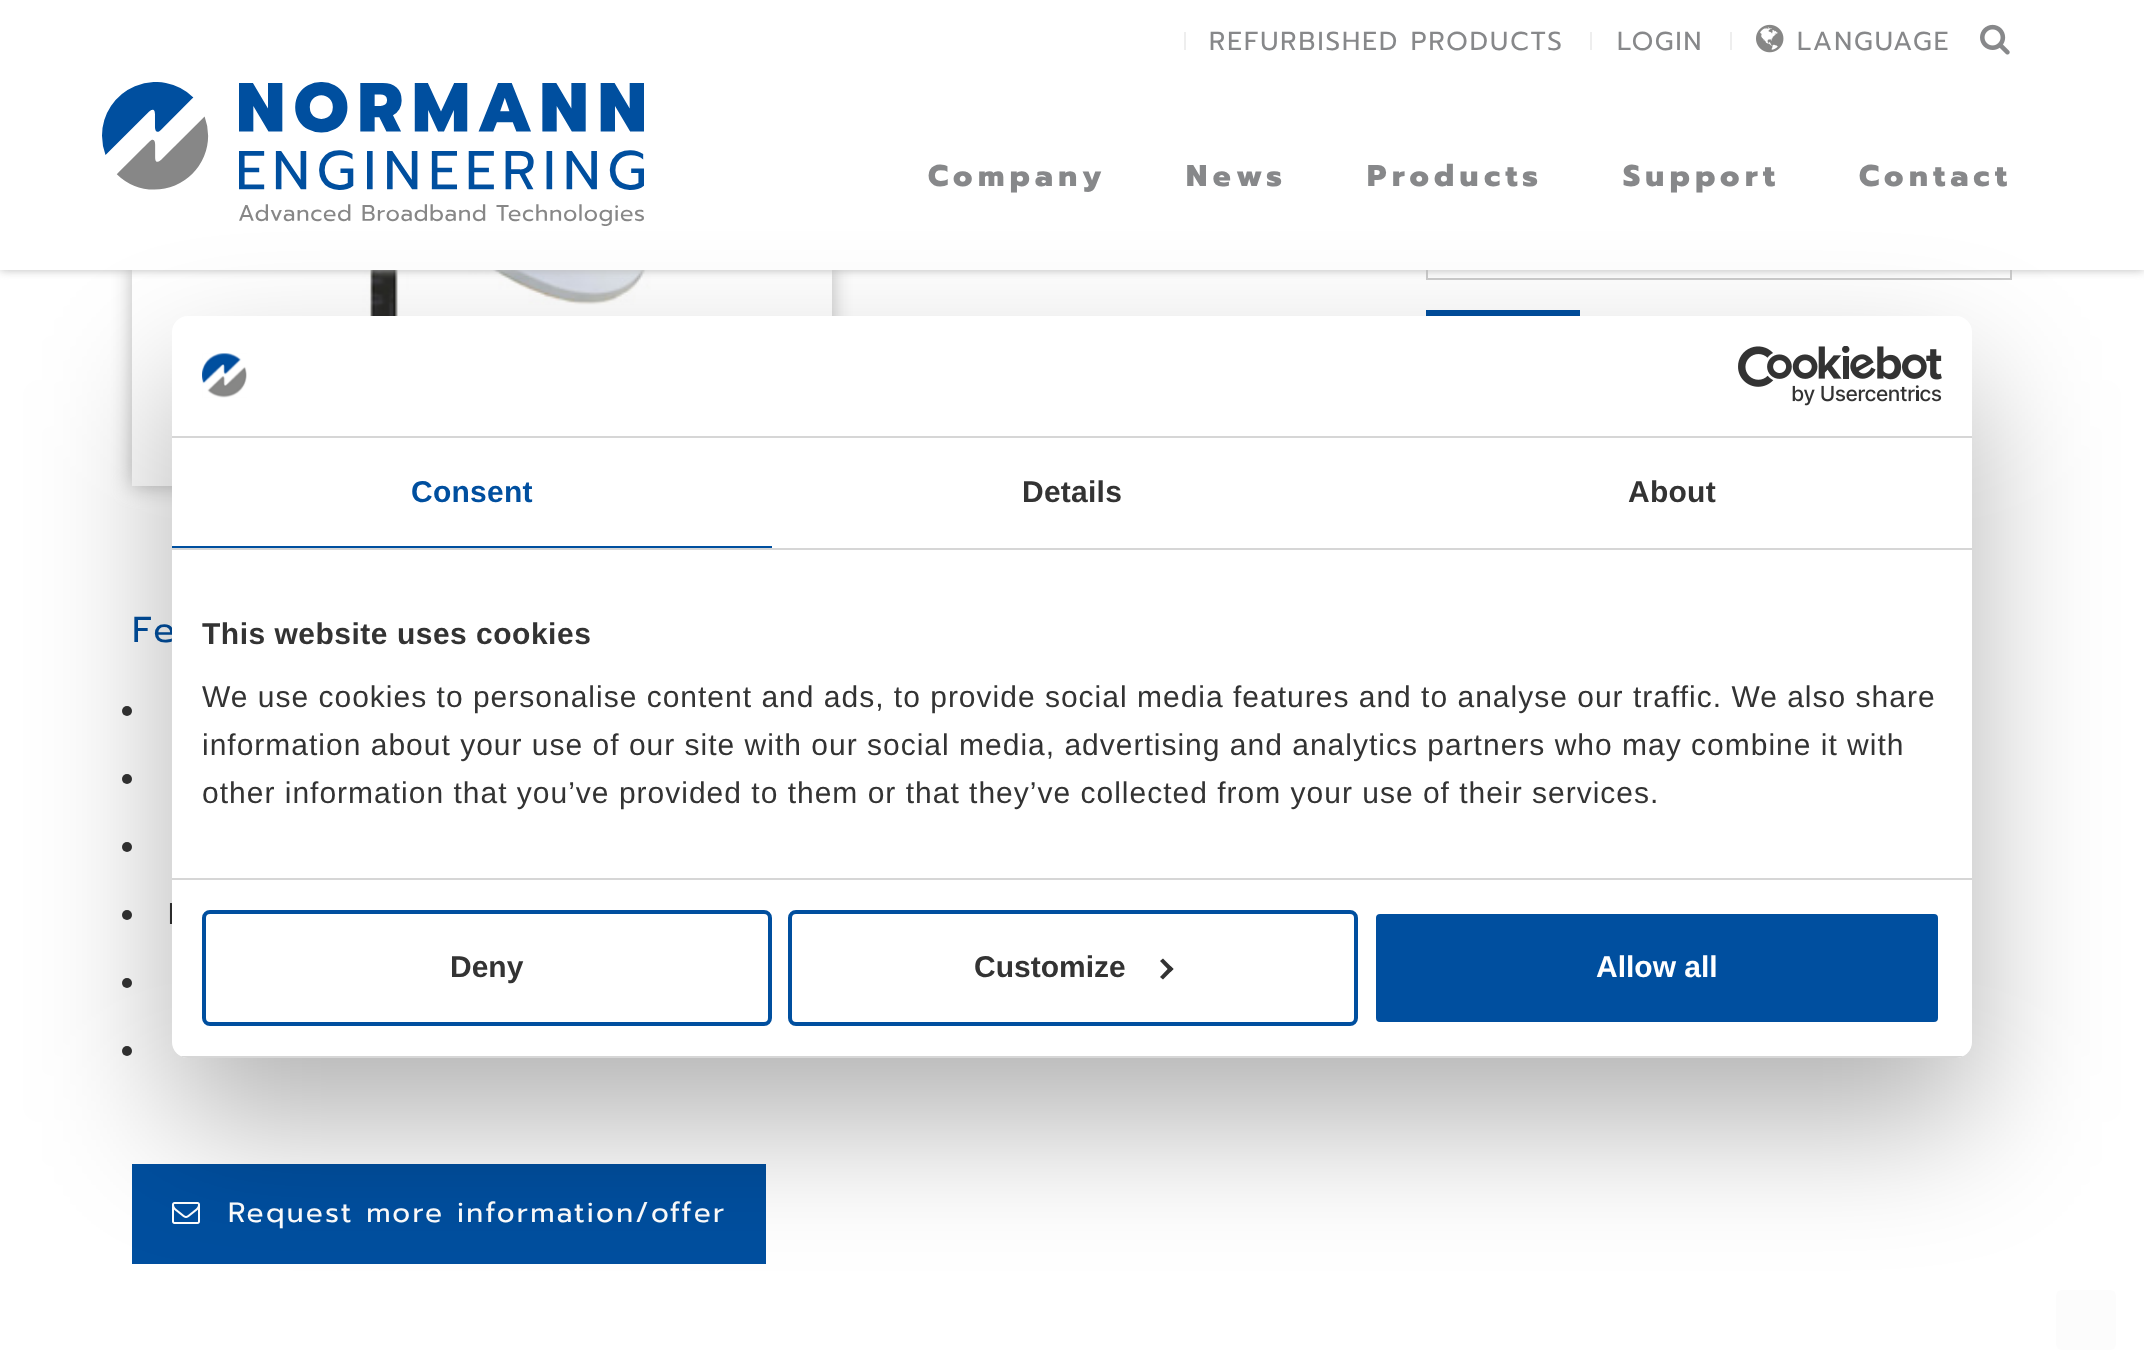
<svg xmlns="http://www.w3.org/2000/svg" width="2144" height="1372">
	<defs>
		<clipPath id="clip1"><path d="M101 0H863V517H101ZM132-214H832V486H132Z" clip-rule="evenodd" /></clipPath>
		<clipPath id="clip2"><rect x="172" y="316" width="1800" height="742" rx="16" /></clipPath>
	</defs>
	<rect width="100%" height="100%" fill="#FFFFFF" />
	<rect x="1427" y="213" width="584" height="66" fill="none" stroke="#CCCCCC" stroke-width="2" />
	<g clip-path="url(#clip1)">
		<rect x="132" y="-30" width="700" height="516" fill="#BBBBBB" filter="blur(10px)" />
	</g>
	<image x="295" y="270" width="361" height="46" href="assets/img4.png" />
	<rect x="0" y="0" width="2144" height="270" fill="#BBBBBB" filter="blur(5px)" />
	<rect x="0" y="0" width="2144" height="270" fill="#FFFFFF" />
	<rect x="1184" y="32" width="2" height="18" fill="#EEEEEE" />
	<text x="1209" y="50" font-family="Prompt" font-size="26" letter-spacing="2" fill="#87888A">REFURBISHED PRODUCTS</text>
	<rect x="1590" y="32" width="2" height="18" fill="#EEEEEE" />
	<text x="1617" y="50" font-family="Prompt" font-size="26" letter-spacing="2" fill="#87888A">LOGIN</text>
	<rect x="1730" y="32" width="2" height="18" fill="#EEEEEE" />
	<image x="1756" y="24" width="28" height="29" href="assets/img1.png" />
	<text x="1797" y="50" font-family="Prompt" font-size="26" letter-spacing="2" fill="#87888A">LANGUAGE</text>
	<image x="1980" y="24" width="30" height="31" href="assets/img2.png" />
	<image x="102" y="82" width="542" height="144" href="assets/img3.png" />
	<g font-family="Prompt" font-size="30" font-weight="800" letter-spacing="5.5" fill="#87888A">
		<text x="928" y="186">Company</text>
		<text x="1186" y="186">News</text>
		<text x="1367" y="186">Products</text>
		<text x="1623" y="186">Support</text>
		<text x="1859" y="186">Contact</text>
	</g>
	<rect x="1426" y="310" width="154" height="6" fill="#004F9F" />
	<text x="132" y="642" font-family="Prompt" font-size="36" letter-spacing="4" fill="#004F9F">Fe</text>
	<circle cx="127" cy="711" r="5" fill="#333333" />
	<circle cx="127" cy="779" r="5" fill="#333333" />
	<circle cx="127" cy="847" r="5" fill="#333333" />
	<circle cx="127" cy="915" r="5" fill="#333333" />
	<text x="168" y="924" font-family="Prompt" font-size="30" letter-spacing="2.3" fill="#333333">I</text>
	<circle cx="127" cy="983" r="5" fill="#333333" />
	<circle cx="127" cy="1051" r="5" fill="#333333" />
	<rect x="132" y="1164" width="634" height="100" fill="#004F9F" />
	<image x="172" y="1202" width="28" height="22" href="assets/img5.png" />
	<text x="228" y="1222" font-family="Prompt" font-size="28" letter-spacing="2.3" fill="#FFFFFF">Request more information/offer</text>
	<rect x="2056" y="1290" width="60" height="60" rx="6" fill="#FCFCFC" />
	<rect x="172" y="380" width="1800" height="742" rx="16" fill="#000000" fill-opacity="0.3" filter="blur(68px)" />
	<rect x="172" y="316" width="1800" height="742" rx="16" fill="#FFFFFF" />
	<rect x="172" y="436" width="1800" height="2" fill="#D6D6D6" />
	<image x="202" y="353" width="45" height="45" href="assets/img6.png" />
	<image x="1738" y="346" width="204" height="60" href="assets/img7.png" />
	<rect x="172" y="548" width="1800" height="2" fill="#D6D6D6" />
	<rect x="172" y="546" width="600" height="2" fill="#004F9F" />
	<text x="411" y="502" font-family="Liberation Sans" font-size="30" font-weight="700" letter-spacing="0.25" fill="#004F9F">Consent</text>
	<g font-family="Liberation Sans" font-size="30" font-weight="700" letter-spacing="0.25" fill="#333333">
		<text x="1022" y="502">Details</text>
		<text x="1628" y="502">About</text>
	</g>
	<rect x="172" y="878" width="1800" height="2" fill="#D6D6D6" />
	<text x="202" y="644" font-family="Liberation Sans" font-size="30" font-weight="700" letter-spacing="0.5" fill="#333333">This website uses cookies</text>
	<g font-family="Liberation Sans" font-size="30" letter-spacing="1" fill="#333333">
		<text x="202" y="707">We use cookies to personalise content and ads, to provide social media features and to analyse our traffic. We also share</text>
		<text x="202" y="755">information about your use of our site with our social media, advertising and analytics partners who may combine it with</text>
		<text x="202" y="803">other information that you’ve provided to them or that they’ve collected from your use of their services.</text>
	</g>
	<g clip-path="url(#clip2)">
		<rect x="172" y="1056" width="1800" height="2" fill="#D6D6D6" />
	</g>
	<rect x="204" y="912" width="566" height="112" rx="6" fill="none" stroke="#004F9F" stroke-width="4" />
	<text x="450" y="977" font-family="Liberation Sans" font-size="30" font-weight="700" fill="#333333">Deny</text>
	<rect x="790" y="912" width="566" height="112" rx="6" fill="none" stroke="#004F9F" stroke-width="4" />
	<text x="974" y="977" font-family="Liberation Sans" font-size="30" font-weight="700" fill="#333333">Customize</text>
	<path d="M1163 958.5L1173.5 969L1170.5 972L1160 961Z" fill="#333333" />
	<path d="M1170.5 966L1173.5 969L1163 979.5L1160 977Z" fill="#333333" />
	<rect x="1374" y="912" width="566" height="112" rx="6" fill="#004F9F" stroke="#FFFFFF" stroke-width="4" />
	<text x="1596" y="977" font-family="Liberation Sans" font-size="30" font-weight="700" fill="#FFFFFF">Allow all</text>
</svg>
